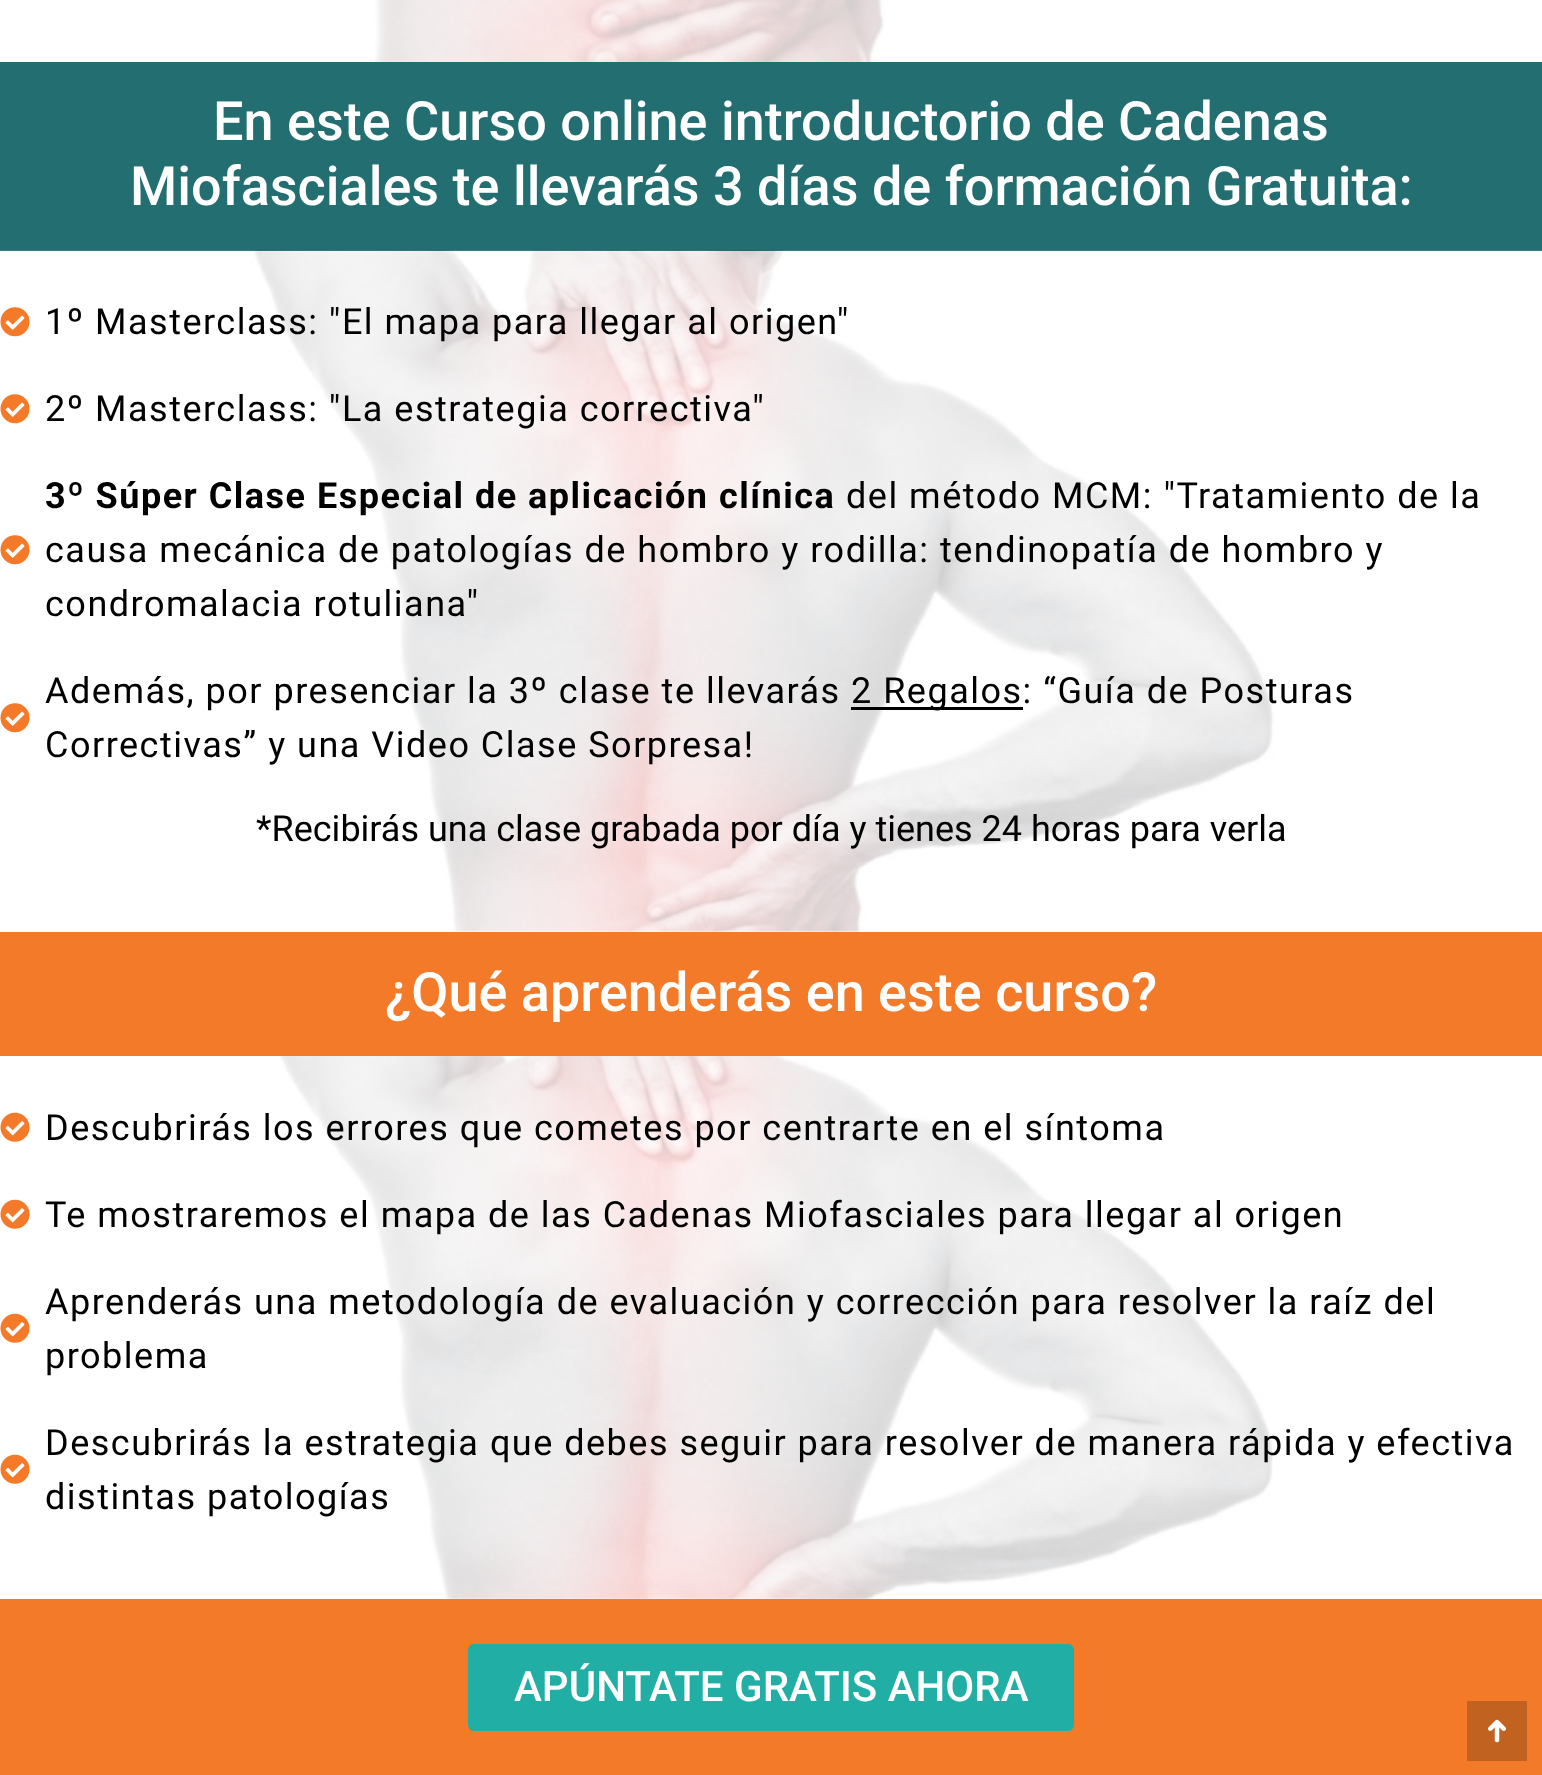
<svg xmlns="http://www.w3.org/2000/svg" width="1542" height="1775">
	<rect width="100%" height="100%" fill="#FFFFFF" />
	<image x="375" y="0" width="509" height="62" href="assets/img1.png" />
	<rect x="0" y="62" width="1542" height="189" fill="#236E71" />
	<g font-family="Roboto" font-size="54" font-weight="500" fill="#FFFFFF">
		<text x="213" y="140">En este Curso online introductorio de Cadenas</text>
		<text x="130" y="205">Miofasciales te llevarás 3 días de formación Gratuita:</text>
	</g>
	<image x="0" y="250" width="1542" height="682" href="assets/img2.png" />
	<image x="0" y="307" width="30" height="30" href="assets/img3.png" />
	<text x="45" y="334" font-family="Roboto" font-size="36" letter-spacing="1.5" fill="#000000">1º Masterclass: "El mapa para llegar al origen"</text>
	<image x="0" y="394" width="30" height="30" href="assets/img3.png" />
	<text x="45" y="421" font-family="Roboto" font-size="36" letter-spacing="1.5" fill="#000000">2º Masterclass: "La estrategia correctiva"</text>
	<image x="0" y="535" width="30" height="30" href="assets/img3.png" />
	<text x="45" y="508" font-family="Roboto" font-size="36" font-weight="700" letter-spacing="1.5" fill="#000000">3º Súper Clase Especial de aplicación clínica</text>
	<g font-family="Roboto" font-size="36" letter-spacing="1.5" fill="#000000">
		<text x="846" y="508">del método MCM: "Tratamiento de la</text>
		<text x="45" y="562">causa mecánica de patologías de hombro y rodilla: tendinopatía de hombro y</text>
		<text x="45" y="616">condromalacia rotuliana"</text>
	</g>
	<image x="0" y="703" width="30" height="30" href="assets/img3.png" />
	<text x="45" y="703" font-family="Roboto" font-size="36" letter-spacing="1.5" fill="#000000">Además, por presenciar la 3º clase te llevarás</text>
	<rect x="851" y="707" width="172" height="3" fill="#000000" />
	<g font-family="Roboto" font-size="36" letter-spacing="1.5" fill="#000000">
		<text x="851" y="703">2 Regalos: “Guía de Posturas</text>
		<text x="45" y="757">Correctivas” y una Video Clase Sorpresa!</text>
	</g>
	<text x="256" y="841" font-family="Roboto" font-size="36" fill="#000000">*Recibirás una clase grabada por día y tienes 24 horas para verla</text>
	<rect x="0" y="932" width="1542" height="124" fill="#F37A29" />
	<text x="385" y="1011" font-family="Roboto" font-size="54" font-weight="500" fill="#FFFFFF">¿Qué aprenderás en este curso?</text>
	<image x="280" y="1056" width="993" height="543" href="assets/img4.png" />
	<image x="0" y="1112" width="30" height="30" href="assets/img5.png" />
	<text x="45" y="1140" font-family="Roboto" font-size="36" letter-spacing="1.5" fill="#000000">Descubrirás los errores que cometes por centrarte en el síntoma</text>
	<image x="0" y="1199" width="30" height="30" href="assets/img5.png" />
	<text x="45" y="1227" font-family="Roboto" font-size="36" letter-spacing="1.5" fill="#000000">Te mostraremos el mapa de las Cadenas Miofasciales para llegar al origen</text>
	<image x="0" y="1313" width="30" height="30" href="assets/img5.png" />
	<g font-family="Roboto" font-size="36" letter-spacing="1.5" fill="#000000">
		<text x="45" y="1314">Aprenderás una metodología de evaluación y corrección para resolver la raíz del</text>
		<text x="45" y="1368">problema</text>
	</g>
	<image x="0" y="1454" width="30" height="30" href="assets/img5.png" />
	<g font-family="Roboto" font-size="36" letter-spacing="1.5" fill="#000000">
		<text x="45" y="1455">Descubrirás la estrategia que debes seguir para resolver de manera rápida y efectiva</text>
		<text x="45" y="1509">distintas patologías</text>
	</g>
	<rect x="0" y="1599" width="1542" height="176" fill="#F37A29" />
	<rect x="468" y="1644" width="606" height="87" rx="6" fill="#21AFA5" />
	<text x="514" y="1701" font-family="Roboto" font-size="42" font-weight="500" fill="#FFFFFF">APÚNTATE GRATIS AHORA</text>
	<rect x="1467" y="1701" width="60" height="60" fill="#C26221" />
	<image x="1488" y="1719" width="18" height="24" href="assets/img6.png" />
</svg>
